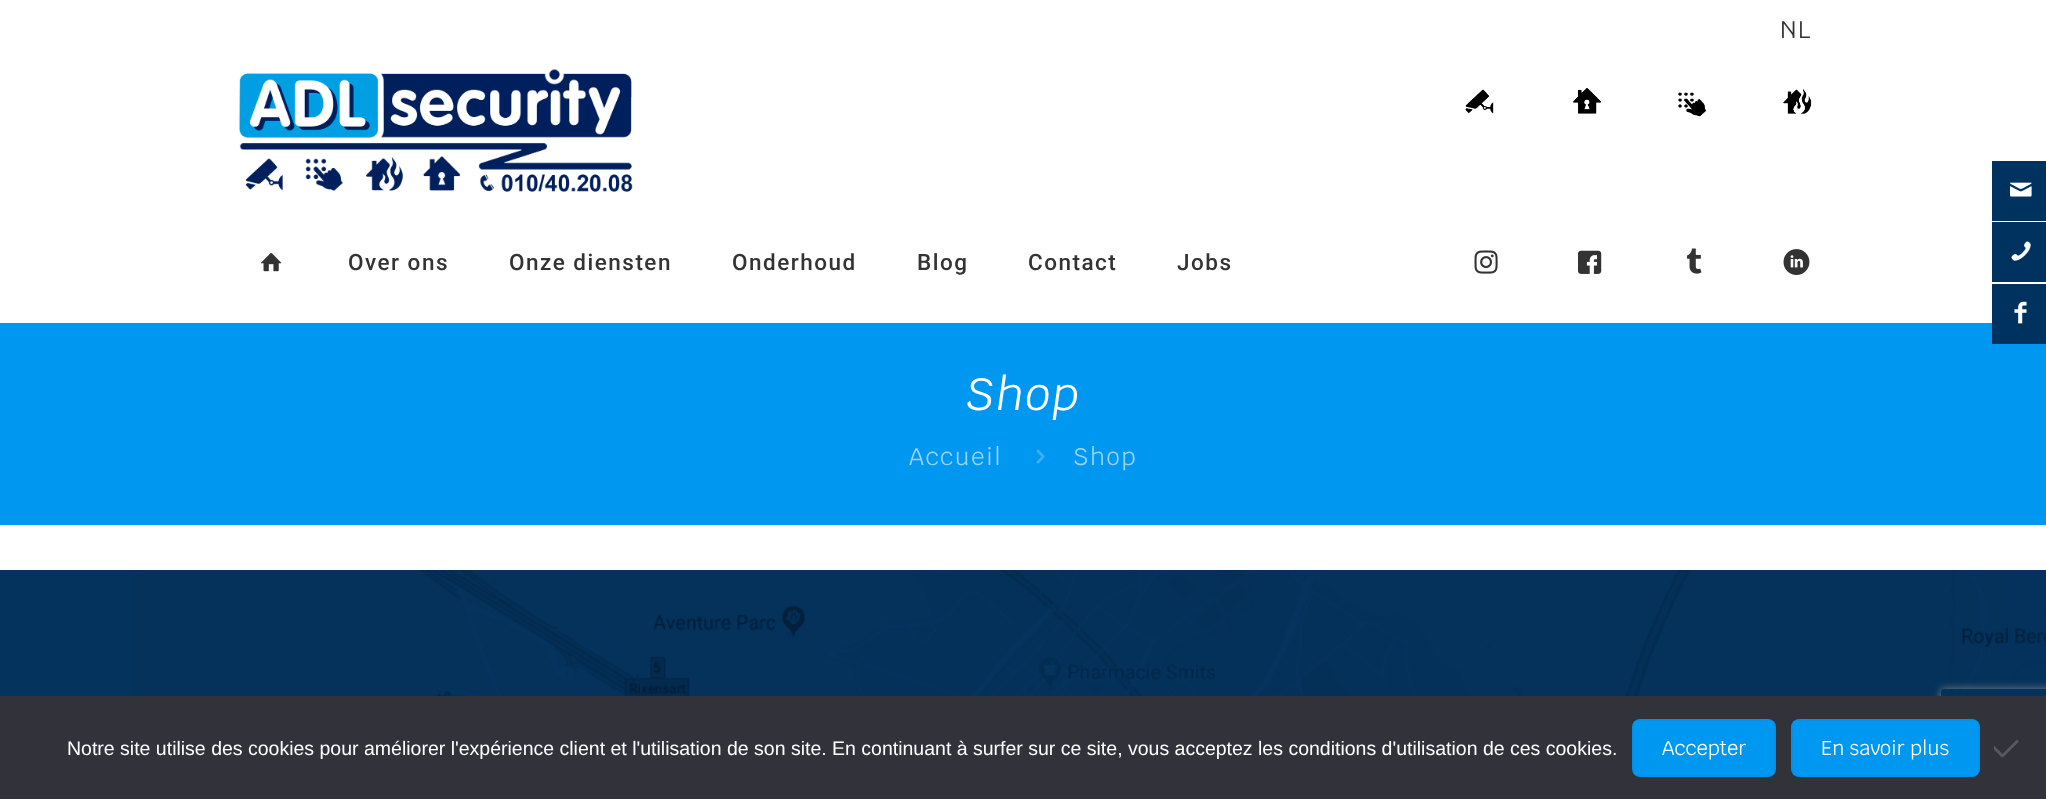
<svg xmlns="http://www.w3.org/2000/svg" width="2046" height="799">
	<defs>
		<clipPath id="clip1"><path d="M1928 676H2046V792H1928ZM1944 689H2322C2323.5 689 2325 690.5 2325 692V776C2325 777.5 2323.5 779 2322 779H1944C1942.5 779 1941 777.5 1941 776V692C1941 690.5 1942.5 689 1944 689Z" clip-rule="evenodd" /></clipPath>
	</defs>
	<rect width="100%" height="100%" fill="#FFFFFF" />
	<text x="1780" y="38" font-family="Krub" font-size="24" letter-spacing="1.5" fill="#333333">NL</text>
	<image x="239" y="69" width="394" height="123" href="assets/img1.png" />
	<image x="1465" y="89" width="29" height="25" href="assets/img2.png" />
	<image x="1573" y="88" width="28" height="26" href="assets/img3.png" />
	<image x="1678" y="92" width="29" height="25" href="assets/img4.png" />
	<image x="1783" y="89" width="29" height="25" href="assets/img5.png" />
	<image x="261" y="253" width="21" height="19" href="assets/img6.png" />
	<g font-family="Roboto" font-size="22.5" font-weight="500" letter-spacing="1.5" fill="#333333">
		<text x="348" y="270">Over ons</text>
		<text x="509" y="270">Onze diensten</text>
		<text x="732" y="270">Onderhoud</text>
		<text x="917" y="270">Blog</text>
		<text x="1028" y="270">Contact</text>
		<text x="1177" y="270">Jobs</text>
	</g>
	<image x="1474" y="250" width="24" height="24" href="assets/img7.png" />
	<image x="1578" y="250" width="24" height="24" href="assets/img8.png" />
	<image x="1687" y="248" width="15" height="26" href="assets/img9.png" />
	<image x="1783" y="249" width="27" height="26" href="assets/img10.png" />
	<rect x="0" y="323" width="2046" height="202" fill="#0097F0" />
	<text x="966" y="410" font-family="Krub" font-size="45" font-style="italic" letter-spacing="1.5" fill="#FFFFFF">Shop</text>
	<text x="909" y="465" font-family="Krub" font-size="24" letter-spacing="1.5" fill="#99D5F9">Accueil</text>
	<image x="1036" y="449" width="9" height="15" href="assets/img11.png" />
	<text x="1073" y="465" font-family="Krub" font-size="24" letter-spacing="1.5" fill="#99D5F9">Shop</text>
	<rect x="1992" y="161" width="54" height="60" fill="#00325F" />
	<image x="2010" y="182" width="22" height="15" href="assets/img12.png" />
	<rect x="1992" y="222" width="54" height="60" fill="#00325F" />
	<image x="2011" y="241" width="20" height="20" href="assets/img13.png" />
	<rect x="1992" y="284" width="54" height="60" fill="#00325F" />
	<image x="2014" y="301" width="13" height="23" href="assets/img14.png" />
	<rect x="0" y="570" width="131" height="126" fill="#04335E" />
	<image x="131" y="570" width="1915" height="126" href="assets/img15.png" />
	<g clip-path="url(#clip1)">
		<rect x="1941" y="689" width="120" height="90" rx="3" fill="#808080" filter="blur(4px)" />
	</g>
	<rect x="0" y="696" width="2046" height="103" fill="#32323A" />
	<text x="67" y="755" font-family="Liberation Sans" font-size="19.5" fill="#FFFFFF">Notre site utilise des cookies pour améliorer l'expérience client et l'utilisation de son site. En continuant à surfer sur ce site, vous acceptez les conditions d'utilisation de ces cookies.</text>
	<rect x="1632" y="719" width="144" height="58" rx="8" fill="#0097F0" />
	<rect x="1633" y="720" width="142" height="56" fill="none" stroke="#000000" stroke-opacity="0.03" stroke-width="2" />
	<text x="1662" y="755" font-family="Krub" font-size="20" fill="#FFFFFF">Accepter</text>
	<rect x="1791" y="719" width="189" height="58" rx="8" fill="#0097F0" />
	<rect x="1792" y="720" width="187" height="56" fill="none" stroke="#000000" stroke-opacity="0.03" stroke-width="2" />
	<text x="1821" y="755" font-family="Krub" font-size="20" fill="#FFFFFF">En savoir plus</text>
	<path d="M2017 739.5L2019 741.5L2003 757.5L2001 755.5Z" fill="#59595D" />
	<path d="M1994 749.5V745.5L2004 755.5L2002 757.5Z" fill="#59595D" />
</svg>
